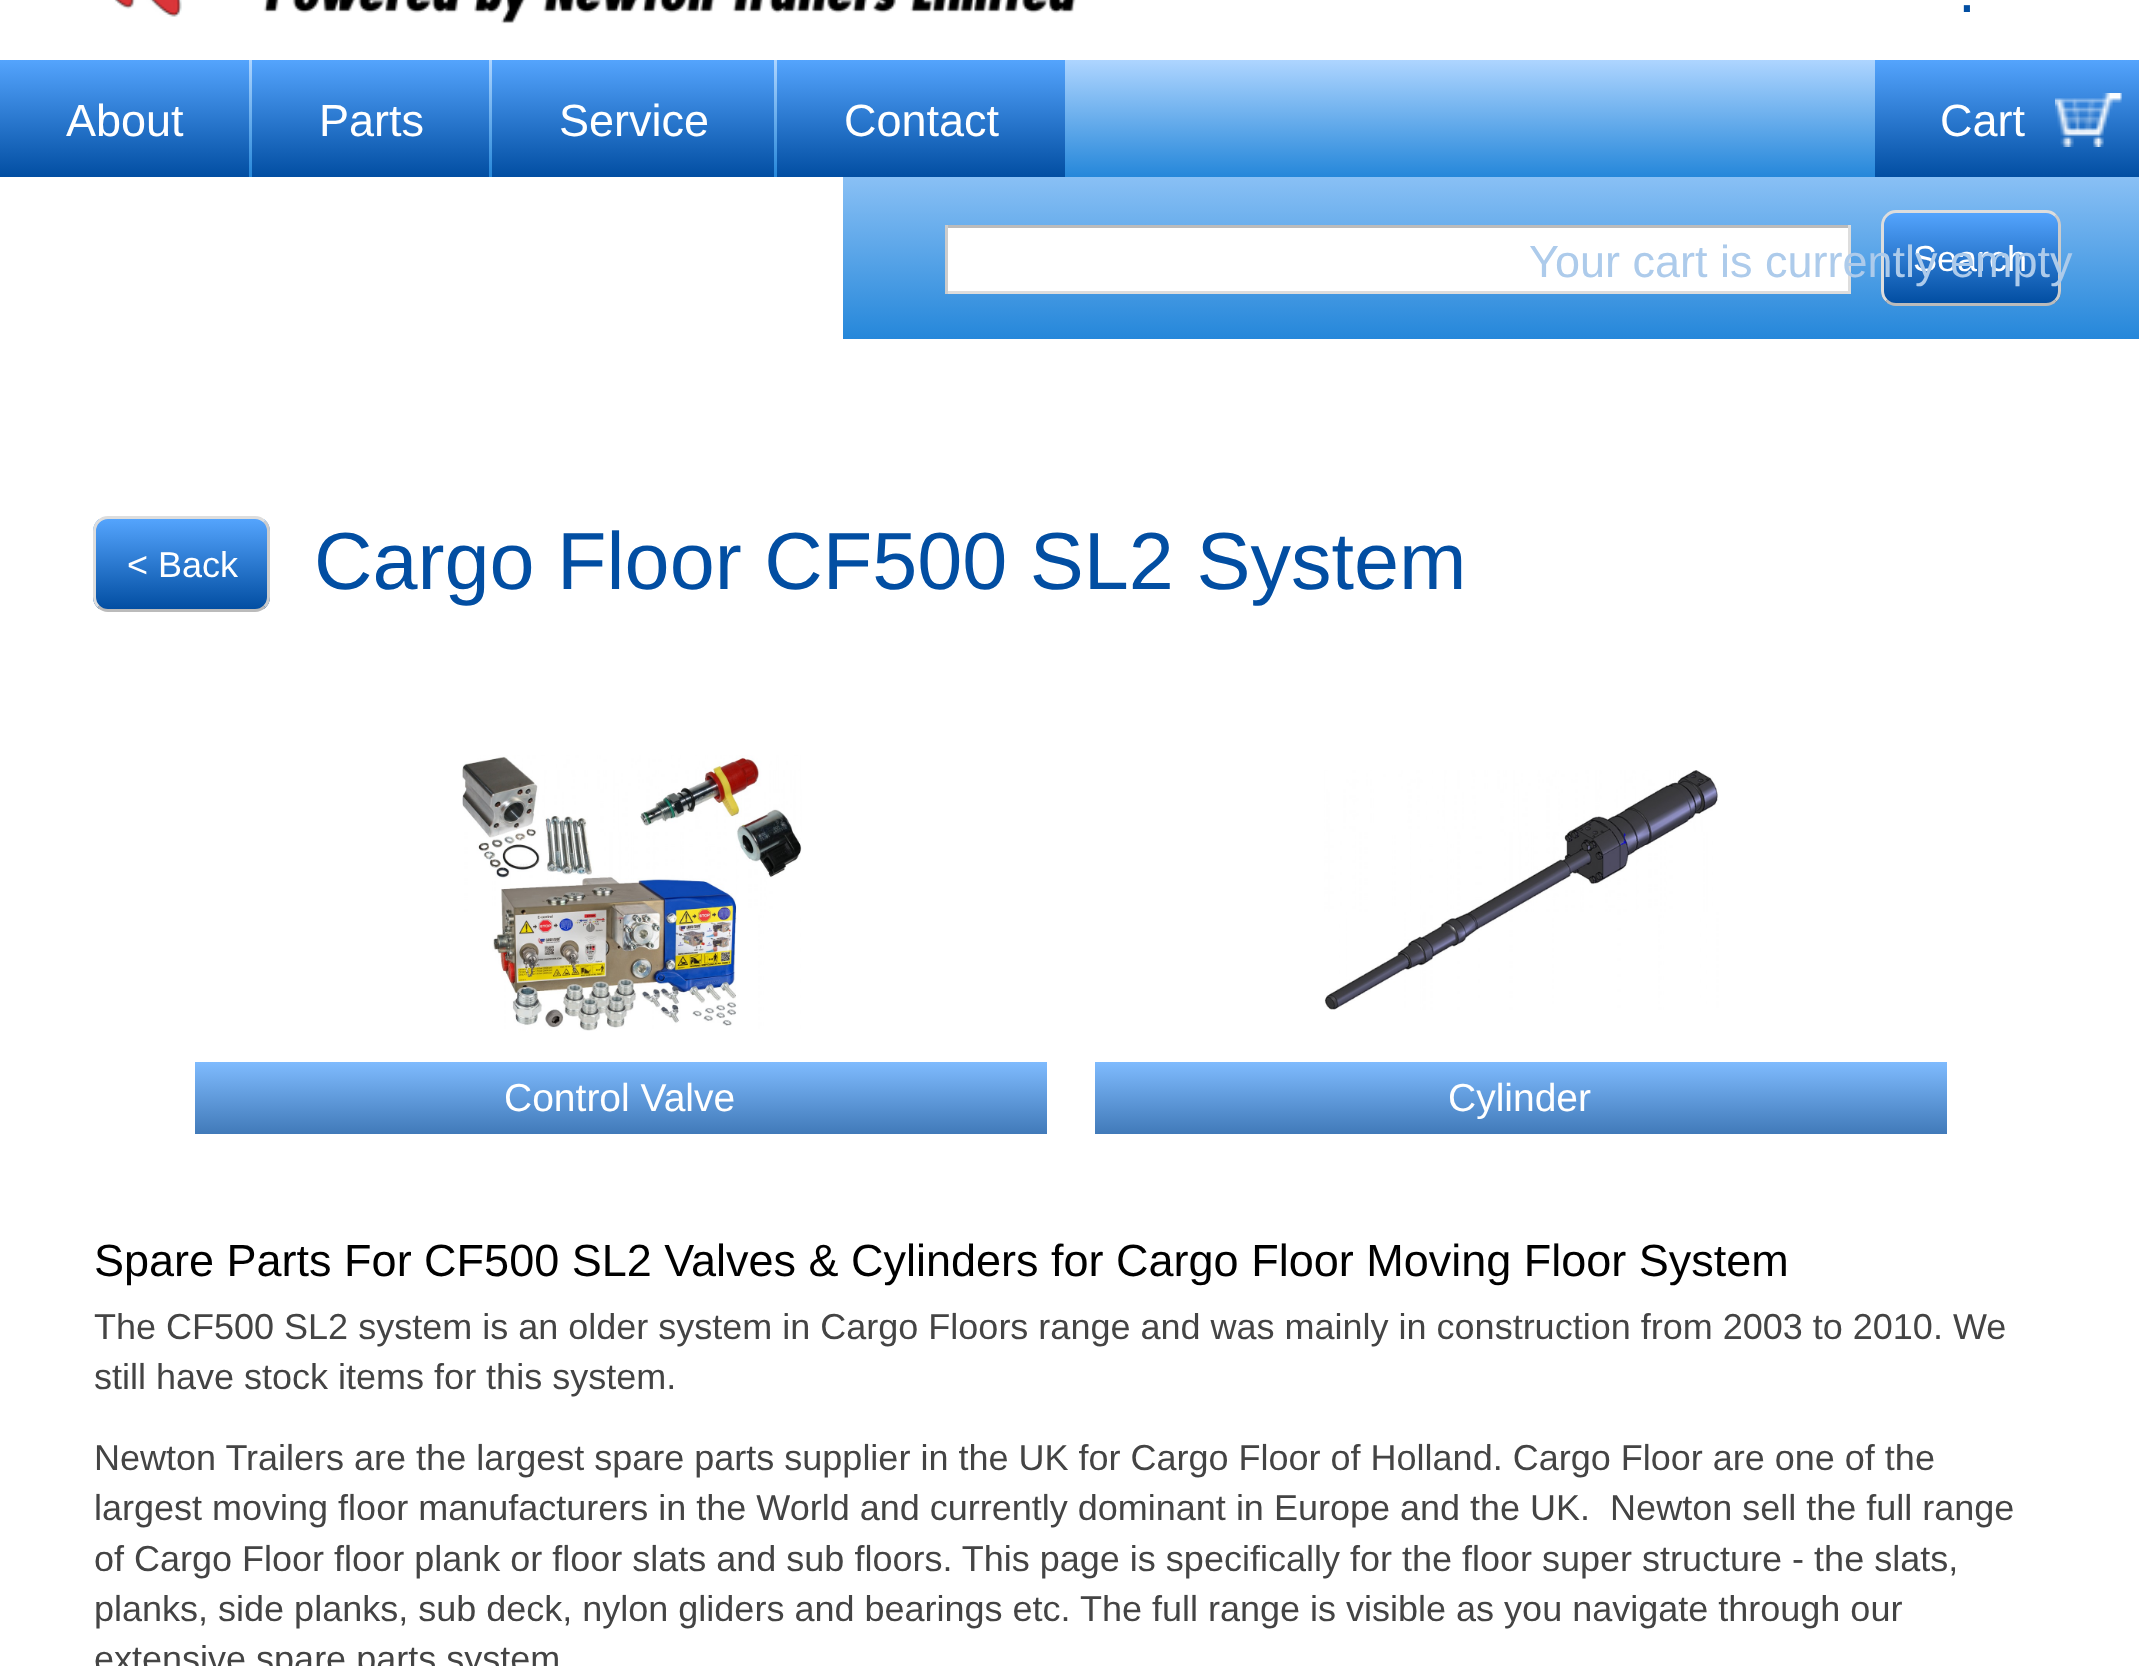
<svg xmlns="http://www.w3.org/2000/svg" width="2139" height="1666">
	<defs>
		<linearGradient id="g1" gradientUnits="userSpaceOnUse" x1="1070" y1="60" x2="1070" y2="177"><stop offset="0" stop-color="#AED5FF" /><stop offset="1" stop-color="#2587DA" /></linearGradient>
		<linearGradient id="g2" gradientUnits="userSpaceOnUse" x1="125" y1="60" x2="125" y2="177"><stop offset="0" stop-color="#54A4FD" /><stop offset="1" stop-color="#024EA2" /></linearGradient>
		<linearGradient id="g3" gradientUnits="userSpaceOnUse" x1="371" y1="60" x2="371" y2="177"><stop offset="0" stop-color="#54A4FD" /><stop offset="1" stop-color="#024EA2" /></linearGradient>
		<linearGradient id="g4" gradientUnits="userSpaceOnUse" x1="633" y1="60" x2="633" y2="177"><stop offset="0" stop-color="#54A4FD" /><stop offset="1" stop-color="#024EA2" /></linearGradient>
		<linearGradient id="g5" gradientUnits="userSpaceOnUse" x1="921" y1="60" x2="921" y2="177"><stop offset="0" stop-color="#54A4FD" /><stop offset="1" stop-color="#024EA2" /></linearGradient>
		<linearGradient id="g6" gradientUnits="userSpaceOnUse" x1="1491" y1="117" x2="1491" y2="339"><stop offset="0" stop-color="#AED5FF" /><stop offset="1" stop-color="#2587DA" /></linearGradient>
		<clipPath id="clip1"><rect x="1881" y="210" width="180" height="96" rx="15" /></clipPath>
		<linearGradient id="g7" gradientUnits="userSpaceOnUse" x1="1971" y1="213" x2="1971" y2="303"><stop offset="0" stop-color="#54A4FD" /><stop offset="1" stop-color="#024EA2" /></linearGradient>
		<clipPath id="clip2"><rect x="93" y="516" width="177" height="96" rx="15" /></clipPath>
		<linearGradient id="g8" gradientUnits="userSpaceOnUse" x1="182" y1="519" x2="182" y2="609"><stop offset="0" stop-color="#54A4FD" /><stop offset="1" stop-color="#024EA2" /></linearGradient>
		<linearGradient id="g9" gradientUnits="userSpaceOnUse" x1="621" y1="1062" x2="621" y2="1134"><stop offset="0" stop-color="#7FBBFE" /><stop offset="1" stop-color="#417AB9" /></linearGradient>
		<linearGradient id="g10" gradientUnits="userSpaceOnUse" x1="1521" y1="1062" x2="1521" y2="1134"><stop offset="0" stop-color="#7FBBFE" /><stop offset="1" stop-color="#417AB9" /></linearGradient>
	</defs>
	<rect width="100%" height="100%" fill="#FFFFFF" />
	<image x="114" y="0" width="962" height="24" href="assets/img1.png" />
	<text x="1958" y="12" font-family="Liberation Sans" font-size="64" fill="#024EA2">.</text>
	<rect x="249" y="60" width="1626" height="117" fill="url(#g1)" />
	<rect x="0" y="60" width="249" height="117" fill="url(#g2)" />
	<text x="66" y="136" font-family="Liberation Sans" font-size="45" fill="#FFFFFF">About</text>
	<rect x="252" y="60" width="237" height="117" fill="url(#g3)" />
	<text x="319" y="136" font-family="Liberation Sans" font-size="45" fill="#FFFFFF">Parts</text>
	<rect x="492" y="60" width="282" height="117" fill="url(#g4)" />
	<text x="559" y="136" font-family="Liberation Sans" font-size="45" fill="#FFFFFF">Service</text>
	<rect x="777" y="60" width="288" height="117" fill="url(#g5)" />
	<text x="844" y="136" font-family="Liberation Sans" font-size="45" fill="#FFFFFF">Contact</text>
	<image x="1875" y="60" width="264" height="117" href="assets/img2.png" />
	<text x="1940" y="136" font-family="Liberation Sans" font-size="45" fill="#FFFFFF">Cart</text>
	<rect x="843" y="177" width="1296" height="162" fill="url(#g6)" />
	<rect x="948" y="228" width="900" height="63" fill="#FFFFFF" />
	<rect x="945" y="225" width="906" height="3" fill="#BBBBBB" />
	<rect x="1848" y="225" width="3" height="69" fill="#DDDDDD" />
	<g clip-path="url(#clip1)">
		<rect x="1881" y="213" width="180" height="90" fill="url(#g7)" />
	</g>
	<path d="M2055.5 215.5C2058 218 2059.5 221.5 2059.5 225V291C2059.5 294.5 2058 298 2055.5 300.5" fill="none" stroke="#CCCCCC" stroke-width="3" />
	<path d="M2055.5 300.5C2053 303 2049.5 304.5 2046 304.5H1896C1892.5 304.5 1889 303 1886.5 300.5" fill="none" stroke="#BBBBBB" stroke-width="3" />
	<path d="M1886.5 300.5C1884 298 1882.5 294.5 1882.5 291V225C1882.5 221.5 1884 218 1886.5 215.5C1889 213 1892.5 211.5 1896 211.5H2046C2049.5 211.5 2053 213 2055.5 215.5" fill="none" stroke="#DDDDDD" stroke-width="3" />
	<text x="1913" y="271" font-family="Liberation Sans" font-size="36" fill="#FFFFFF">Search</text>
	<text x="1529" y="277" font-family="Liberation Sans" font-size="45" fill="#ADCBEB">Your cart is currently empty</text>
	<rect x="945" y="291" width="906" height="3" fill="#DDDDDD" />
	<rect x="945" y="225" width="3" height="69" fill="#CCCCCC" />
	<g clip-path="url(#clip2)">
		<rect x="93" y="519" width="177" height="90" fill="url(#g8)" />
	</g>
	<path d="M264.5 521.5C267 524 268.5 527.5 268.5 531V597C268.5 600.5 267 604 264.5 606.5" fill="none" stroke="#CCCCCC" stroke-width="3" />
	<path d="M264.5 606.5C262 609 258.5 610.5 255 610.5H108C104.5 610.5 101 609 98.5 606.5" fill="none" stroke="#BBBBBB" stroke-width="3" />
	<path d="M98.5 606.5C96 604 94.5 600.5 94.5 597V531C94.5 527.5 96 524 98.5 521.5C101 519 104.5 517.5 108 517.5H255C258.5 517.5 262 519 264.5 521.5" fill="none" stroke="#DDDDDD" stroke-width="3" />
	<text x="127" y="577" font-family="Liberation Sans" font-size="36" fill="#FFFFFF">&lt; Back</text>
	<text x="314" y="589" font-family="Liberation Sans" font-size="81" fill="#024EA2">Cargo Floor CF500 SL2 System</text>
	<image x="462" y="755" width="340" height="276" href="assets/img3.png" />
	<rect x="195" y="1062" width="852" height="72" fill="url(#g9)" />
	<text x="504" y="1111" font-family="Liberation Sans" font-size="39" fill="#FFFFFF">Control Valve</text>
	<image x="1324" y="770" width="395" height="240" href="assets/img4.png" />
	<rect x="1095" y="1062" width="852" height="72" fill="url(#g10)" />
	<text x="1448" y="1111" font-family="Liberation Sans" font-size="39" fill="#FFFFFF">Cylinder</text>
	<text x="94" y="1276" font-family="Liberation Sans" font-size="45" fill="#000000">Spare Parts For CF500 SL2 Valves &amp; Cylinders for Cargo Floor Moving Floor System</text>
	<g font-family="Liberation Sans" font-size="36" fill="#444444">
		<text x="94" y="1339">The CF500 SL2 system is an older system in Cargo Floors range and was mainly in construction from 2003 to 2010. We</text>
		<text x="94" y="1389">still have stock items for this system.</text>
		<text x="94" y="1470">Newton Trailers are the largest spare parts supplier in the UK for Cargo Floor of Holland. Cargo Floor are one of the</text>
		<text x="94" y="1520" xml:space="preserve">largest moving floor manufacturers in the World and currently dominant in Europe and the UK.  Newton sell the full range</text>
		<text x="94" y="1571">of Cargo Floor floor plank or floor slats and sub floors. This page is specifically for the floor super structure - the slats,</text>
		<text x="94" y="1621">planks, side planks, sub deck, nylon gliders and bearings etc. The full range is visible as you navigate through our</text>
		<text x="94" y="1671">extensive spare parts system</text>
	</g>
</svg>
